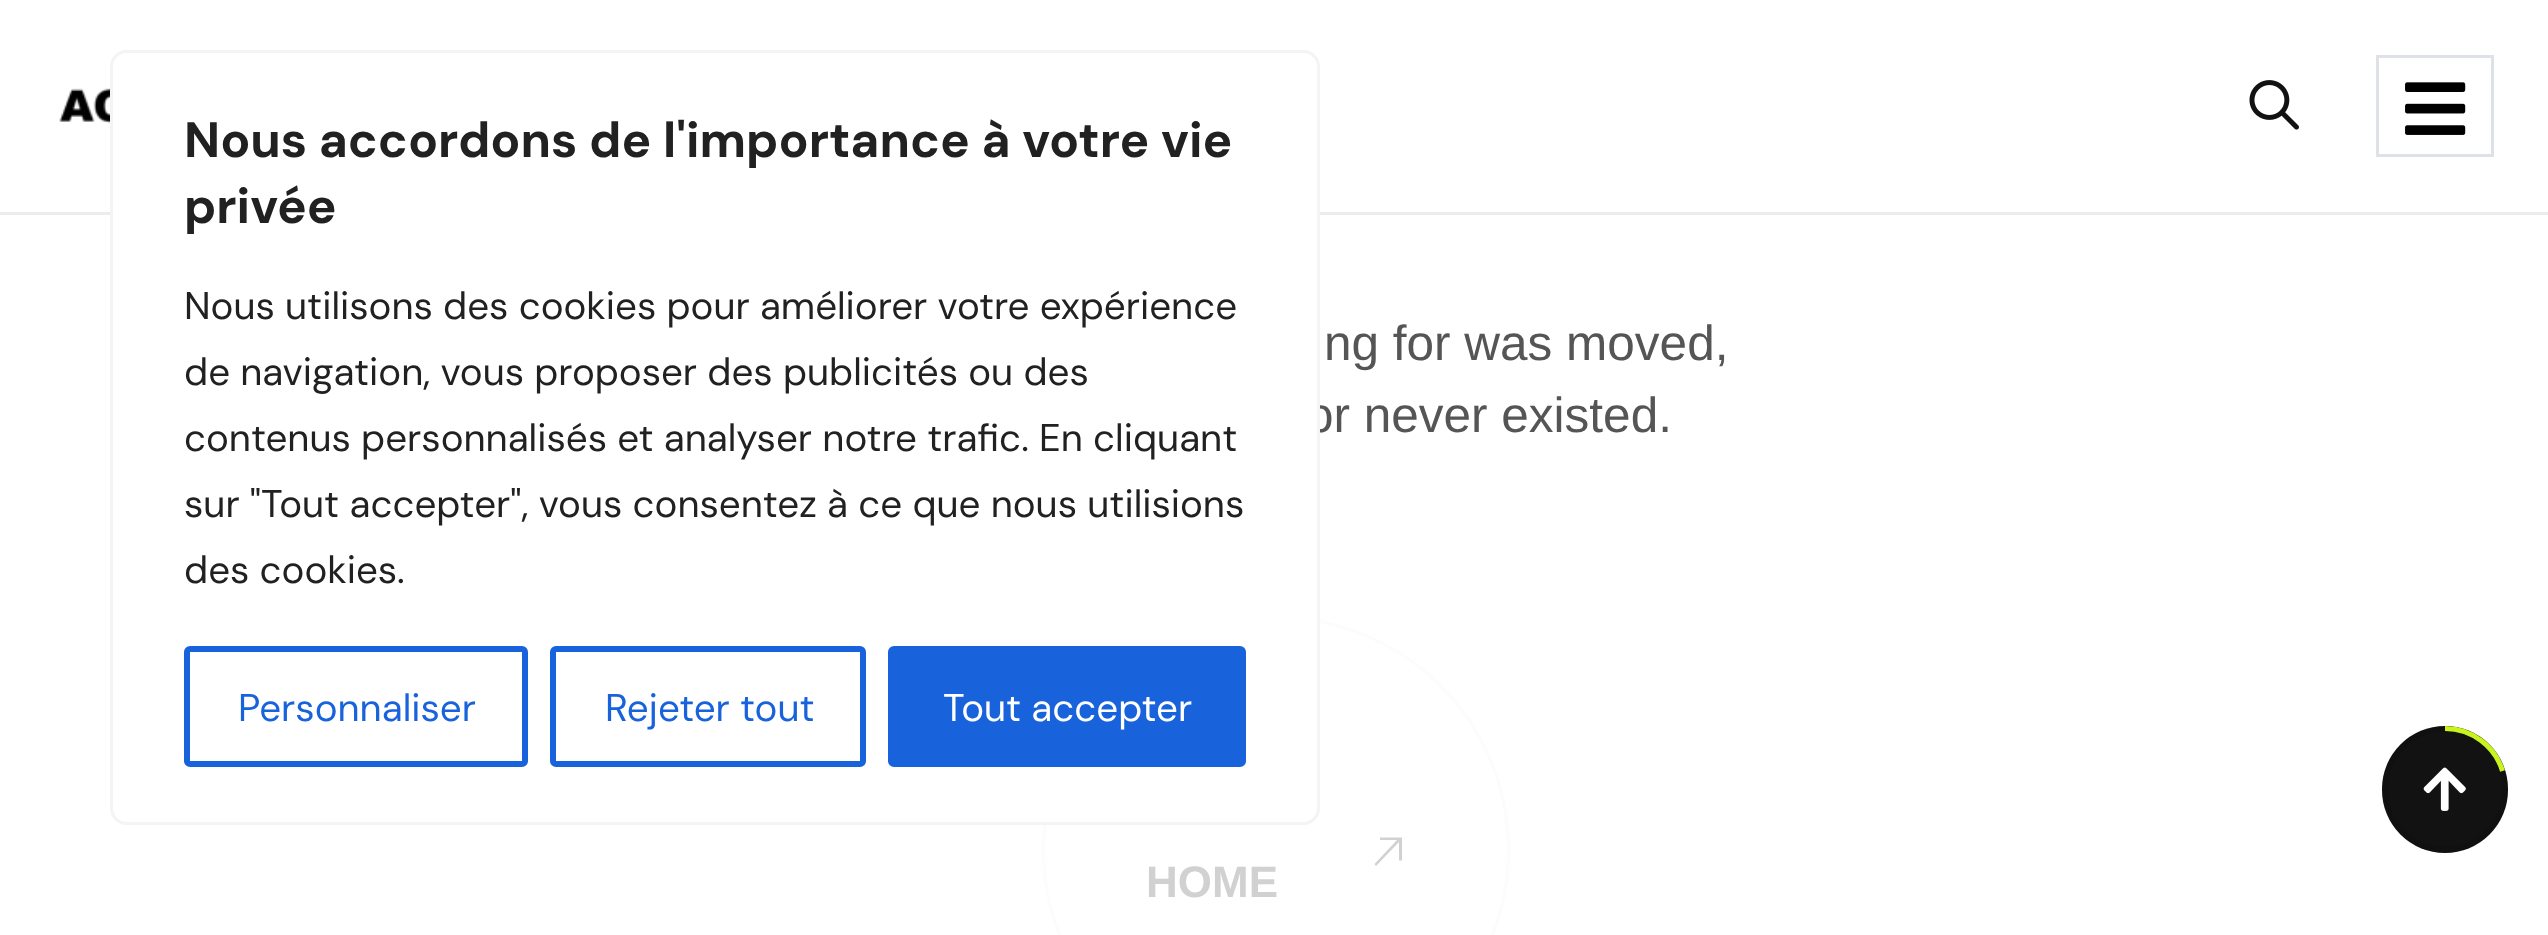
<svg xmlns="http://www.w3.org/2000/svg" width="2548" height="935">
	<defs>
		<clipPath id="clip1"><rect x="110" y="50" width="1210" height="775" rx="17" /></clipPath>
	</defs>
	<rect width="100%" height="100%" fill="#FFFFFF" />
	<rect x="0" y="212" width="2548" height="3" fill="#ECECEC" />
	<image x="59" y="88" width="51" height="36" href="assets/img1.png" />
	<circle cx="1276" cy="850" r="232.5" fill="none" stroke="#FCFCFC" stroke-width="3" />
	<g clip-path="url(#clip1)">
		<rect x="110" y="47" width="1210" height="775" rx="17" fill="#ACABAB" fill-opacity="0.3" filter="blur(14px)" />
	</g>
	<text x="1306" y="432" font-family="Liberation Sans" font-size="49.5" fill="#555555">or never existed.</text>
	<rect x="111.5" y="51.5" width="1207" height="772" rx="15.5" fill="#FFFFFF" stroke="#F4F4F4" stroke-width="3" />
	<g font-family="DM Sans" font-size="49.5" font-weight="700" fill="#212121">
		<text x="184" y="157">Nous accordons de l'importance à votre vie</text>
		<text x="184" y="223">privée</text>
	</g>
	<g font-family="DM Sans" font-size="38.5" fill="#212121">
		<text x="184" y="319">Nous utilisons des cookies pour améliorer votre expérience</text>
		<text x="184" y="385">de navigation, vous proposer des publicités ou des</text>
		<text x="184" y="451">contenus personnalisés et analyser notre trafic. En cliquant</text>
		<text x="184" y="517">sur "Tout accepter", vous consentez à ce que nous utilisions</text>
		<text x="184" y="583">des cookies.</text>
	</g>
	<rect x="187" y="649" width="338" height="115" rx="3" fill="none" stroke="#1863DC" stroke-width="6" />
	<text x="238" y="721" font-family="DM Sans" font-size="38.5" fill="#1863DC">Personnaliser</text>
	<rect x="553" y="649" width="310" height="115" rx="3" fill="none" stroke="#1863DC" stroke-width="6" />
	<text x="605" y="721" font-family="DM Sans" font-size="38.5" fill="#1863DC">Rejeter tout</text>
	<rect x="891" y="649" width="352" height="115" rx="3" fill="#1863DC" stroke="#1863DC" stroke-width="6" />
	<text x="943" y="721" font-family="DM Sans" font-size="38.5" fill="#FFFFFF">Tout accepter</text>
	<image x="2249" y="80" width="50" height="50" href="assets/img2.png" />
	<rect x="2377.5" y="56.5" width="115" height="99" fill="none" stroke="#DEE1E7" stroke-width="3" />
	<image x="2405" y="82" width="61" height="53" href="assets/img3.png" />
	<text x="1324" y="360" font-family="Liberation Sans" font-size="49.5" fill="#555555">ng for was moved,</text>
	<path d="M1380 837.5V840H1397L1374.5 864L1376 866L1399 842V860.5H1402V837.5Z" fill="#D1D1D1" />
	<text x="1146" y="897" font-family="Liberation Sans" font-size="44" font-weight="700" fill="#D1D1D1">HOME</text>
	<rect x="2382" y="726" width="126" height="127" rx="63" fill="#121212" />
	<rect x="2385" y="729" width="120" height="121" rx="60" fill="none" stroke="#000000" stroke-opacity="0.1" stroke-width="6" />
	<image x="2423" y="767" width="43" height="44" href="assets/img4.png" />
	<path d="M2445 728.5C2472 728.5 2495 746.5 2502.5 771" fill="none" stroke="#C8F31D" stroke-width="5" />
</svg>
